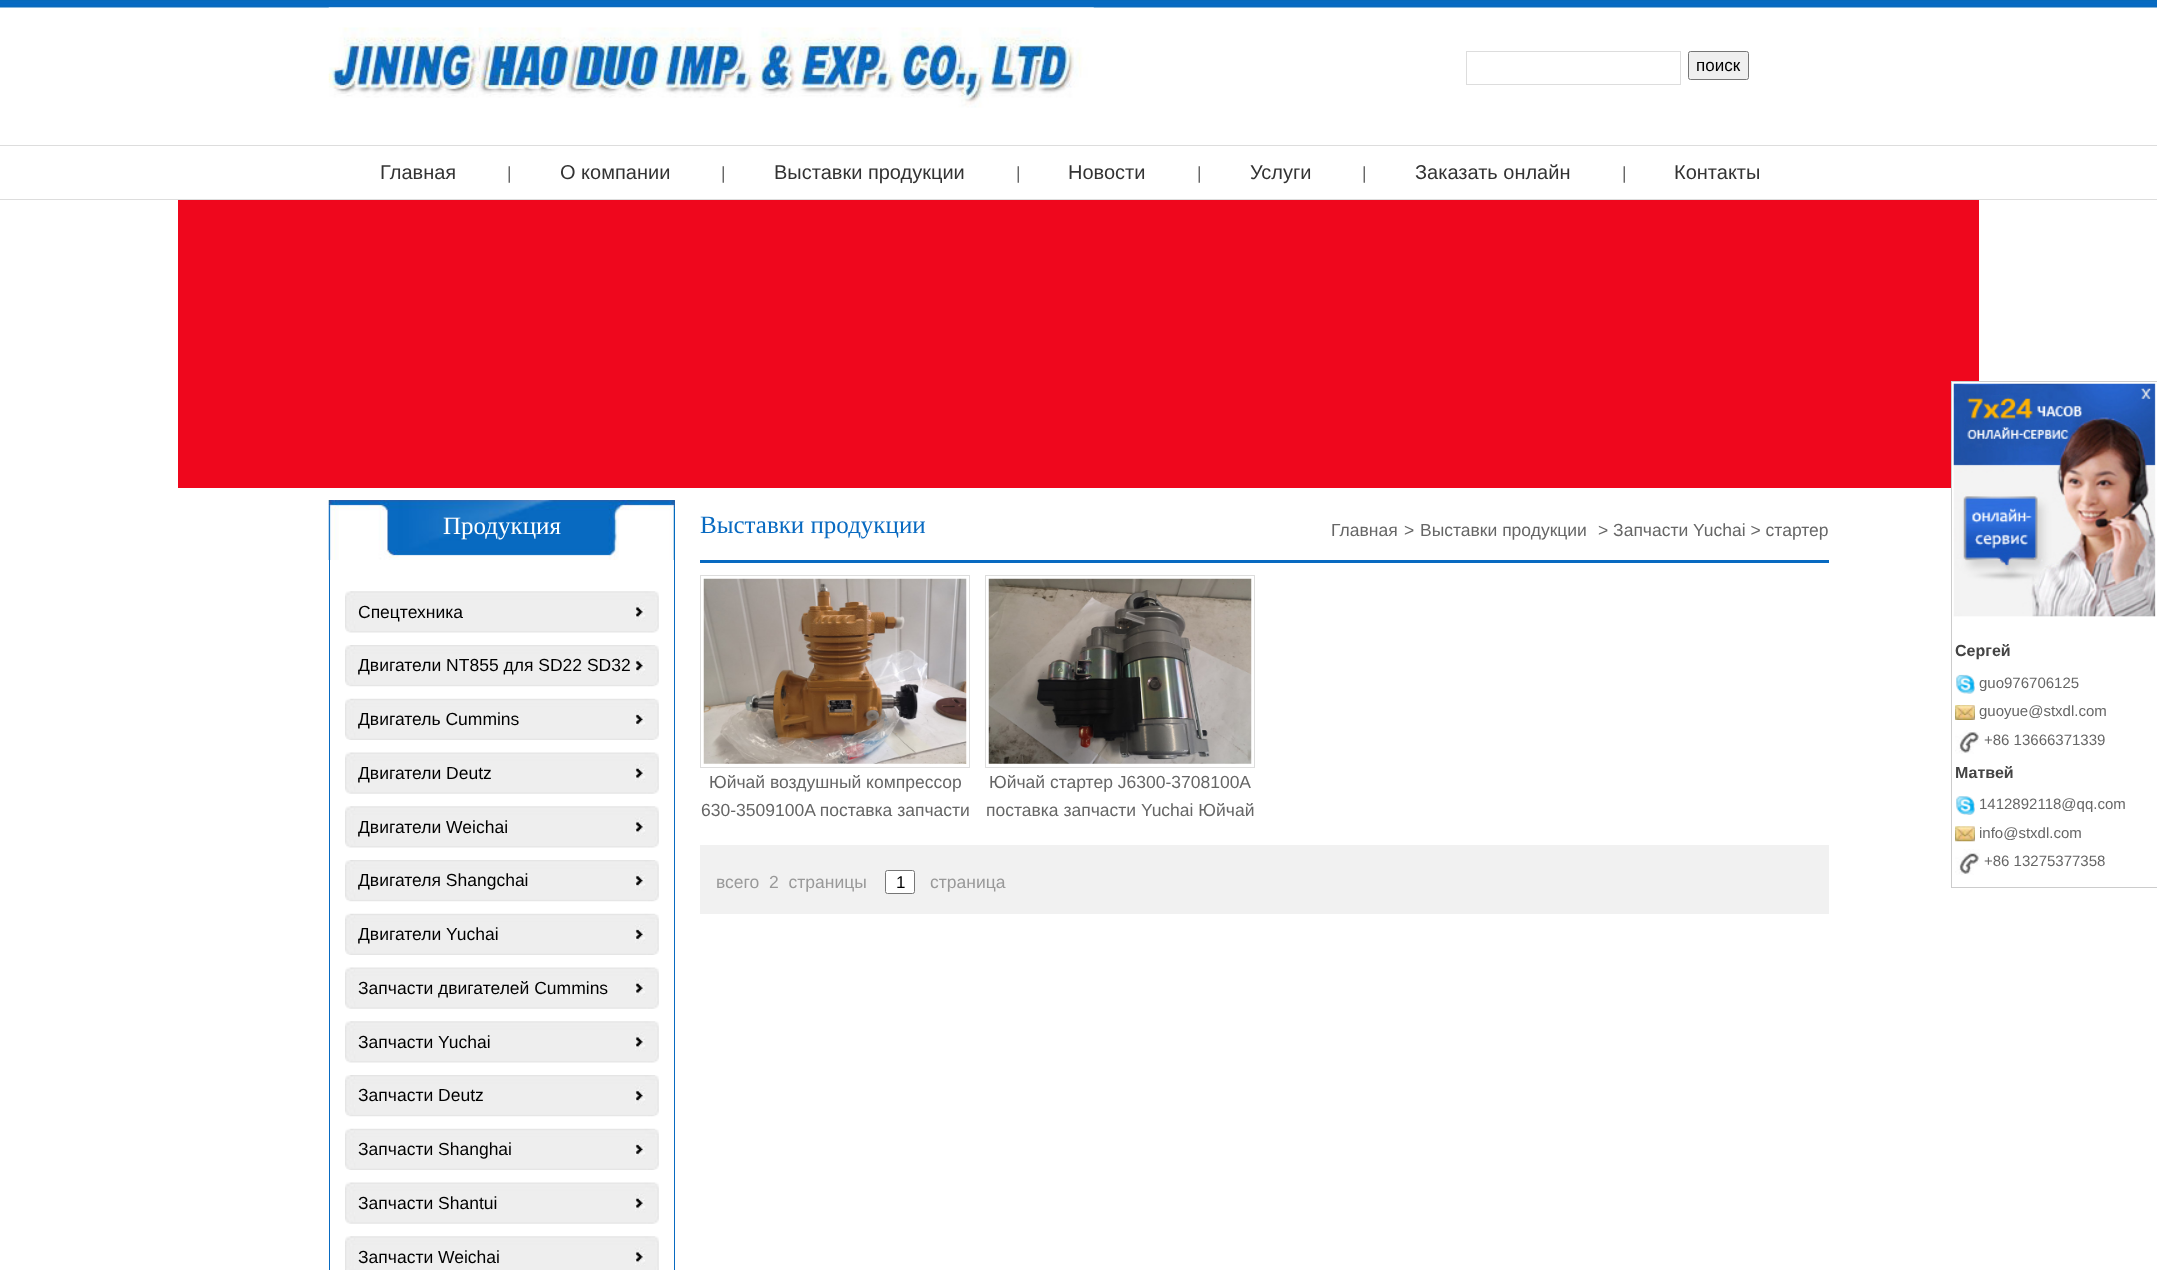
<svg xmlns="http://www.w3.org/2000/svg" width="2157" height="1270">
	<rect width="100%" height="100%" fill="#FFFFFF" />
	<image x="0" y="0" width="2157" height="8" href="assets/img1.png" />
	<image x="328" y="7" width="766" height="101" href="assets/img2.png" />
	<rect x="1466.5" y="51.5" width="214" height="33" fill="none" stroke="#DDDDDD" />
	<rect x="1688.5" y="51.5" width="60" height="28" rx="2" fill="#EFEFEF" stroke="#767676" />
	<text x="1696" y="71" font-family="Liberation Sans" font-size="17" fill="#000000">поиск</text>
	<rect x="0" y="145" width="2157" height="1" fill="#DDDDDD" />
	<rect x="0" y="199" width="2157" height="1" fill="#DDDDDD" />
	<text x="380" y="179" font-family="Liberation Sans" font-size="20" fill="#333333">Главная</text>
	<text x="507" y="179" font-family="Liberation Sans" font-size="17.5" fill="#666666">|</text>
	<text x="560" y="179" font-family="Liberation Sans" font-size="20" fill="#333333">О компании</text>
	<text x="721" y="179" font-family="Liberation Sans" font-size="17.5" fill="#666666">|</text>
	<text x="774" y="179" font-family="Liberation Sans" font-size="20" fill="#333333">Выставки продукции</text>
	<text x="1016" y="179" font-family="Liberation Sans" font-size="17.5" fill="#666666">|</text>
	<text x="1068" y="179" font-family="Liberation Sans" font-size="20" fill="#333333">Новости</text>
	<text x="1197" y="179" font-family="Liberation Sans" font-size="17.5" fill="#666666">|</text>
	<text x="1250" y="179" font-family="Liberation Sans" font-size="20" fill="#333333">Услуги</text>
	<text x="1362" y="179" font-family="Liberation Sans" font-size="17.5" fill="#666666">|</text>
	<text x="1415" y="179" font-family="Liberation Sans" font-size="20" fill="#333333">Заказать онлайн</text>
	<text x="1622" y="179" font-family="Liberation Sans" font-size="17.5" fill="#666666">|</text>
	<text x="1674" y="179" font-family="Liberation Sans" font-size="20" fill="#333333">Контакты</text>
	<rect x="178" y="200" width="1801" height="288" fill="#EF071D" />
	<image x="328" y="500" width="347" height="60" href="assets/img3.png" />
	<text x="443" y="534" font-family="Liberation Serif" font-size="25" fill="#FFFFFF">Продукция</text>
	<rect x="674" y="560" width="1" height="710" fill="#086AC1" />
	<rect x="329" y="560" width="1" height="710" fill="#086AC1" />
	<image x="345" y="591" width="314" height="42" href="assets/img4.png" />
	<text x="358" y="618" font-family="Liberation Sans" font-size="17.5" fill="#000000">Спецтехника</text>
	<image x="345" y="645" width="314" height="42" href="assets/img5.png" />
	<text x="358" y="671" font-family="Liberation Sans" font-size="17.5" fill="#000000">Двигатели NT855 для SD22 SD32</text>
	<image x="345" y="698" width="314" height="42" href="assets/img6.png" />
	<text x="358" y="725" font-family="Liberation Sans" font-size="17.5" fill="#000000">Двигатель Cummins</text>
	<image x="345" y="752" width="314" height="42" href="assets/img7.png" />
	<text x="358" y="779" font-family="Liberation Sans" font-size="17.5" fill="#000000">Двигатели Deutz</text>
	<image x="345" y="806" width="314" height="42" href="assets/img4.png" />
	<text x="358" y="833" font-family="Liberation Sans" font-size="17.5" fill="#000000">Двигатели Weichai</text>
	<image x="345" y="860" width="314" height="42" href="assets/img5.png" />
	<text x="358" y="886" font-family="Liberation Sans" font-size="17.5" fill="#000000">Двигателя Shangchai</text>
	<image x="345" y="913" width="314" height="42" href="assets/img6.png" />
	<text x="358" y="940" font-family="Liberation Sans" font-size="17.5" fill="#000000">Двигатели Yuchai</text>
	<image x="345" y="967" width="314" height="42" href="assets/img7.png" />
	<text x="358" y="994" font-family="Liberation Sans" font-size="17.5" fill="#000000">Запчасти двигателей Cummins</text>
	<image x="345" y="1021" width="314" height="42" href="assets/img8.png" />
	<text x="358" y="1048" font-family="Liberation Sans" font-size="17.5" fill="#000000">Запчасти Yuchai</text>
	<image x="345" y="1075" width="314" height="42" href="assets/img5.png" />
	<text x="358" y="1101" font-family="Liberation Sans" font-size="17.5" fill="#000000">Запчасти Deutz</text>
	<image x="345" y="1128" width="314" height="42" href="assets/img6.png" />
	<text x="358" y="1155" font-family="Liberation Sans" font-size="17.5" fill="#000000">Запчасти Shanghai</text>
	<image x="345" y="1182" width="314" height="42" href="assets/img7.png" />
	<text x="358" y="1209" font-family="Liberation Sans" font-size="17.5" fill="#000000">Запчасти Shantui</text>
	<image x="345" y="1236" width="314" height="34" href="assets/img9.png" />
	<text x="358" y="1263" font-family="Liberation Sans" font-size="17.5" fill="#000000">Запчасти Weichai</text>
	<rect x="700" y="560" width="1129" height="3" fill="#086AC1" />
	<text x="700" y="533" font-family="Liberation Serif" font-size="25" fill="#086AC1">Выставки продукции</text>
	<g font-family="Liberation Sans" font-size="17.5" fill="#666666">
		<text x="1331" y="536">Главная</text>
		<text x="1404" y="536">&gt;</text>
		<text x="1420" y="536">Выставки продукции</text>
		<text x="1598" y="536">&gt; Запчасти Yuchai &gt; стартер</text>
	</g>
	<rect x="700.5" y="575.5" width="269" height="192" fill="none" stroke="#DDDDDD" />
	<image x="703" y="578" width="264" height="186" href="assets/img10.png" />
	<g font-family="Liberation Sans" font-size="17.5" fill="#666666">
		<text x="709" y="788">Юйчай воздушный компрессор</text>
		<text x="701" y="816">630-3509100A поставка запчасти</text>
	</g>
	<rect x="985.5" y="575.5" width="269" height="192" fill="none" stroke="#DDDDDD" />
	<image x="988" y="578" width="264" height="186" href="assets/img11.png" />
	<g font-family="Liberation Sans" font-size="17.5" fill="#666666">
		<text x="989" y="788">Юйчай стартер J6300-3708100A</text>
		<text x="986" y="816">поставка запчасти Yuchai Юйчай</text>
	</g>
	<rect x="700" y="845" width="1129" height="69" fill="#F1F1F1" />
	<text x="716" y="888" font-family="Liberation Sans" font-size="17.5" fill="#999999" xml:space="preserve">всего  2  страницы</text>
	<rect x="885.5" y="870.5" width="29" height="23" rx="2" fill="#FFFFFF" stroke="#767676" />
	<text x="896" y="888" font-family="Liberation Sans" font-size="17" fill="#000000">1</text>
	<text x="930" y="888" font-family="Liberation Sans" font-size="17.5" fill="#999999">страница</text>
	<rect x="1952" y="382" width="27" height="106" fill="#FFFFFF" />
	<image x="1953" y="383" width="203" height="234" href="assets/img12.png" />
	<rect x="1951.5" y="381.5" width="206" height="506" fill="none" stroke="#CCCCCC" />
	<image x="2063" y="451" width="53" height="1" href="assets/img13.png" />
	<text x="1955" y="656" font-family="Liberation Sans" font-size="16" font-weight="700" fill="#444444">Сергей</text>
	<image x="1956" y="674" width="19" height="20" href="assets/img14.png" />
	<text x="1979" y="688" font-family="Liberation Sans" font-size="15" fill="#666666">guo976706125</text>
	<image x="1955" y="705" width="20" height="15" href="assets/img15.png" />
	<text x="1979" y="716" font-family="Liberation Sans" font-size="15" fill="#666666">guoyue@stxdl.com</text>
	<image x="1955" y="730" width="25" height="24" href="assets/img16.png" />
	<text x="1984" y="745" font-family="Liberation Sans" font-size="15" fill="#666666">+86 13666371339</text>
	<text x="1955" y="778" font-family="Liberation Sans" font-size="16" font-weight="700" fill="#444444">Матвей</text>
	<image x="1956" y="796" width="19" height="19" href="assets/img17.png" />
	<text x="1979" y="809" font-family="Liberation Sans" font-size="15" fill="#666666">1412892118@qq.com</text>
	<image x="1955" y="826" width="20" height="16" href="assets/img18.png" />
	<text x="1979" y="838" font-family="Liberation Sans" font-size="15" fill="#666666">info@stxdl.com</text>
	<image x="1955" y="849" width="25" height="26" href="assets/img19.png" />
	<text x="1984" y="866" font-family="Liberation Sans" font-size="15" fill="#666666">+86 13275377358</text>
</svg>
